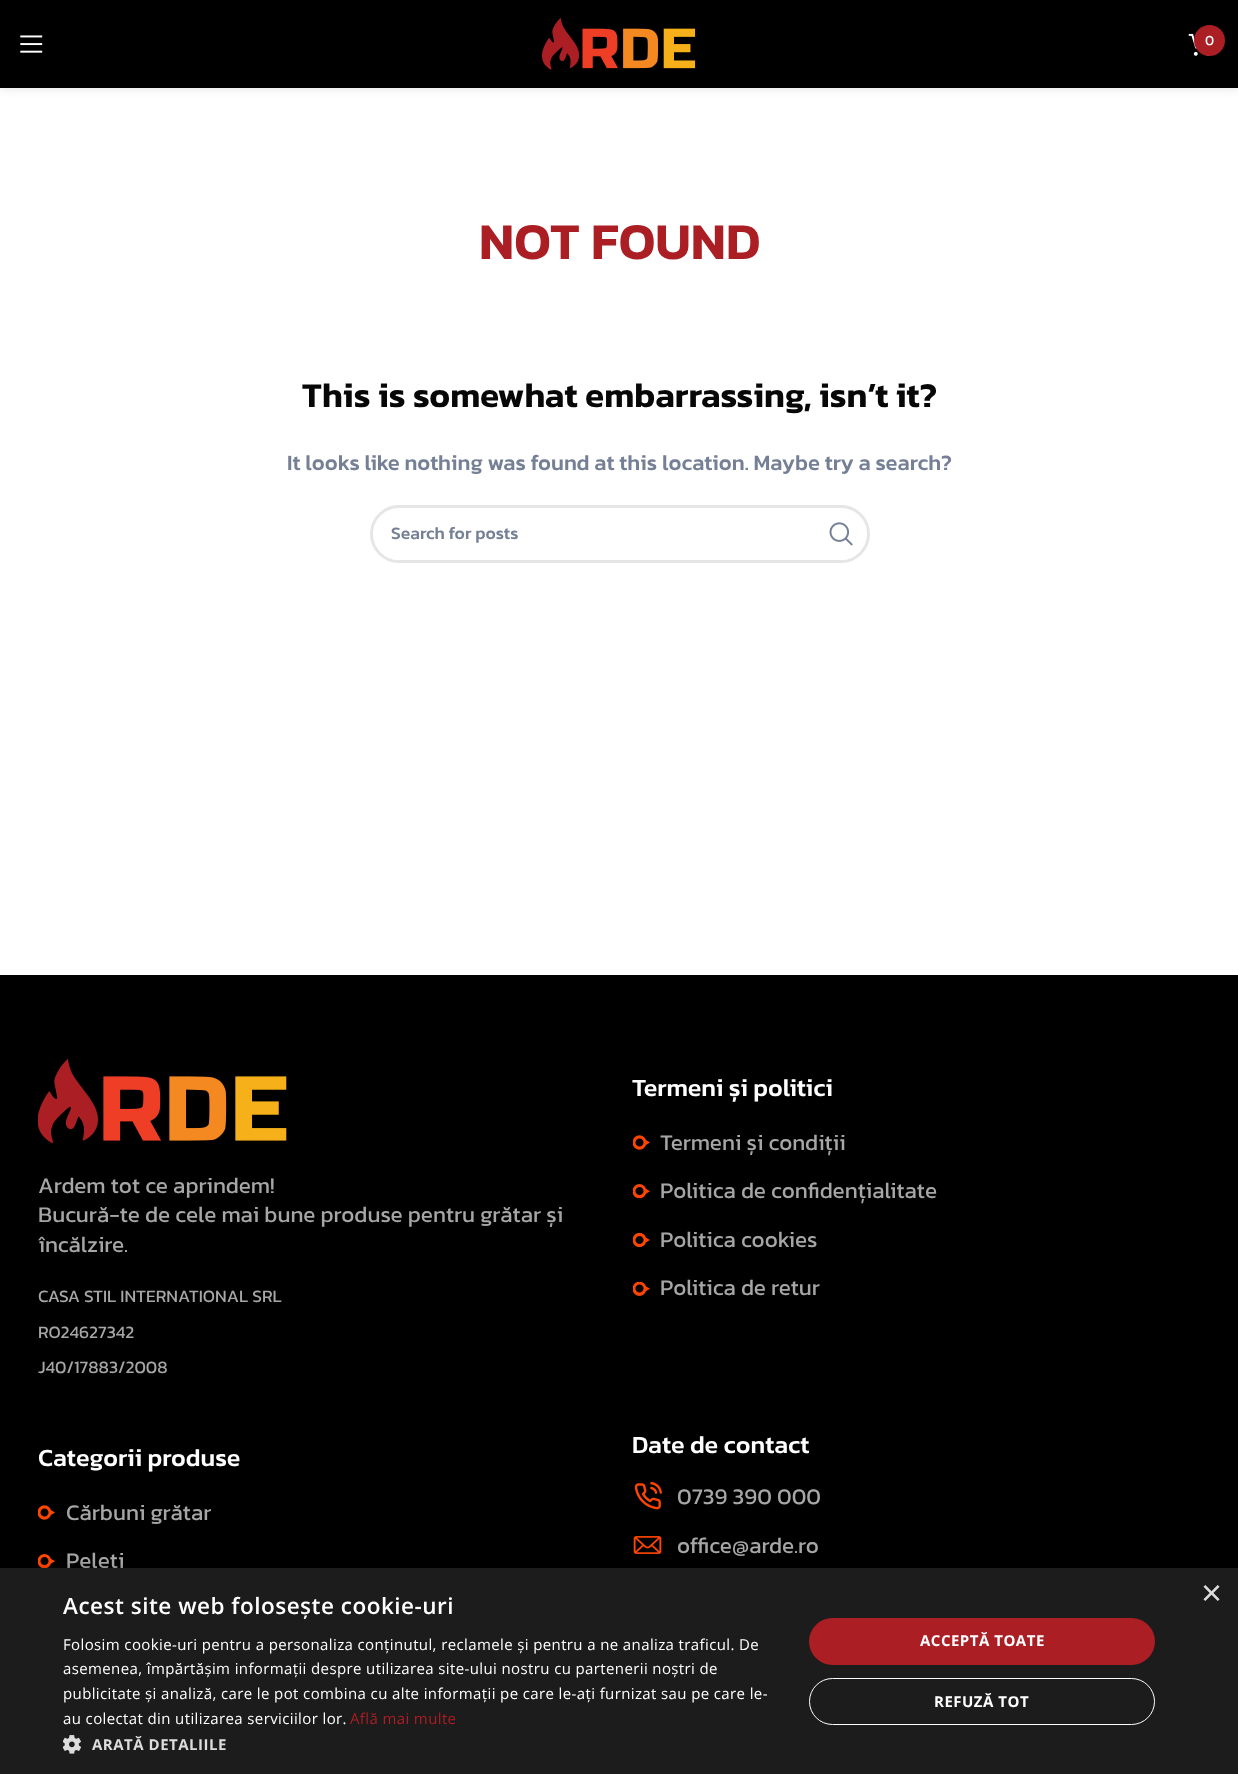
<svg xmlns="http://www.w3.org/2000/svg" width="1238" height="1774">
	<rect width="100%" height="100%" fill="#FFFFFF" />
	<rect x="0" y="1" width="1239" height="88" fill="#000000" fill-opacity="0.1" filter="blur(5px)" />
	<rect x="0" y="0" width="1238" height="88" fill="#000000" />
	<image x="20" y="35" width="23" height="18" href="assets/img1.png" />
	<image x="542" y="17" width="154" height="53" href="assets/img2.png" />
	<image x="1188" y="33" width="21" height="23" href="assets/img3.png" />
	<circle cx="1209.5" cy="40.5" r="15.5" fill="#AA1E24" />
	<text x="1205" y="45" font-family="Kanit" font-size="14" fill="#FFFFFF">0</text>
	<text x="479" y="259" font-family="Kanit" font-size="52" font-weight="600" fill="#AA1E24">NOT FOUND</text>
	<text x="302" y="407" font-family="Kanit" font-size="35" font-weight="600" fill="#080707">This is somewhat embarrassing, isn’t it?</text>
	<text x="287" y="470" font-family="Kanit" font-size="22" font-weight="500" fill="#757F95">It looks like nothing was found at this location. Maybe try a search?</text>
	<rect x="371.5" y="506.5" width="497" height="55" rx="27.5" fill="none" stroke="#E6E6E6" stroke-width="3" />
	<text x="391" y="539" font-family="Kanit" font-size="17.5" font-weight="500" fill="#757F95">Search for posts</text>
	<image x="829" y="522" width="24" height="24" href="assets/img4.png" />
	<rect x="0" y="975" width="1238" height="593" fill="#000000" />
	<image x="38" y="1058" width="249" height="85" href="assets/img5.png" />
	<g font-family="Kanit" font-size="22.5" fill="#A6A6A6">
		<text x="38" y="1193">Ardem tot ce aprindem!</text>
		<text x="38" y="1222">Bucură-te de cele mai bune produse pentru grătar și</text>
		<text x="38" y="1252">încălzire.</text>
	</g>
	<g font-family="Kanit" font-size="17.5" fill="#A6A6A6">
		<text x="38" y="1302">CASA STIL INTERNATIONAL SRL</text>
		<text x="38" y="1338">RO24627342</text>
		<text x="38" y="1373">J40/17883/2008</text>
	</g>
	<text x="38" y="1466" font-family="Kanit" font-size="25" font-weight="500" fill="#FFFFFF">Categorii produse</text>
	<image x="38" y="1505" width="17" height="15" href="assets/img6.png" />
	<text x="66" y="1520" font-family="Kanit" font-size="22.5" fill="#A6A6A6">Cărbuni grătar</text>
	<image x="38" y="1554" width="17" height="14" href="assets/img7.png" />
	<text x="66" y="1568" font-family="Kanit" font-size="22.5" fill="#A6A6A6">Peleți</text>
	<text x="632" y="1096" font-family="Kanit" font-size="25" font-weight="500" fill="#FFFFFF">Termeni și politici</text>
	<image x="633" y="1135" width="17" height="15" href="assets/img6.png" />
	<text x="660" y="1150" font-family="Kanit" font-size="22.5" fill="#A6A6A6">Termeni și condiții</text>
	<image x="633" y="1184" width="17" height="14" href="assets/img7.png" />
	<text x="660" y="1198" font-family="Kanit" font-size="22.5" fill="#A6A6A6">Politica de confidențialitate</text>
	<image x="633" y="1233" width="17" height="14" href="assets/img8.png" />
	<text x="660" y="1247" font-family="Kanit" font-size="22.5" fill="#A6A6A6">Politica cookies</text>
	<image x="633" y="1282" width="17" height="14" href="assets/img9.png" />
	<text x="660" y="1295" font-family="Kanit" font-size="22.5" fill="#A6A6A6">Politica de retur</text>
	<text x="632" y="1453" font-family="Kanit" font-size="25" font-weight="500" fill="#FFFFFF">Date de contact</text>
	<image x="634" y="1482" width="28" height="28" href="assets/img10.png" />
	<text x="677" y="1504" font-family="Kanit" font-size="22.5" fill="#A6A6A6">0739 390 000</text>
	<image x="633" y="1536" width="29" height="18" href="assets/img11.png" />
	<text x="677" y="1553" font-family="Kanit" font-size="22.5" fill="#A6A6A6">office@arde.ro</text>
	<rect x="1" y="1570" width="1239" height="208" fill="#000000" fill-opacity="0.35" filter="blur(5px)" />
	<rect x="0" y="1568" width="1238" height="206" fill="#1C1C1C" />
	<text x="1201" y="1605" font-family="Liberation Sans" font-size="36" fill="#DDDDDD">×</text>
	<text x="63" y="1614" font-family="Open Sans" font-size="22.5" font-weight="600" letter-spacing="0.5" fill="#FFFFFF">Acest site web folosește cookie-uri</text>
	<g font-family="Open Sans" font-size="15" letter-spacing="0.38" fill="#FFFFFF">
		<text x="63" y="1650">Folosim cookie-uri pentru a personaliza conținutul, reclamele și pentru a ne analiza traficul. De</text>
		<text x="63" y="1674">asemenea, împărtășim informații despre utilizarea site-ului nostru cu partenerii noștri de</text>
		<text x="63" y="1699">publicitate și analiză, care le pot combina cu alte informații pe care le-ați furnizat sau pe care le-</text>
		<text x="63" y="1724">au colectat din utilizarea serviciilor lor.</text>
	</g>
	<text x="350" y="1724" font-family="Open Sans" font-size="15" letter-spacing="0.38" fill="#AA1E24">Află mai multe</text>
	<image x="63" y="1735" width="18" height="19" href="assets/img12.png" />
	<text x="92" y="1750" font-family="Open Sans" font-size="15" font-weight="700" letter-spacing="0.5" fill="#DDDDDD">ARATĂ DETALIILE</text>
	<rect x="809" y="1618" width="346" height="47" rx="23.5" fill="#AA1E24" />
	<text x="920" y="1646" font-family="Open Sans" font-size="15" font-weight="700" letter-spacing="0.5" fill="#FFFFFF">ACCEPTĂ TOATE</text>
	<rect x="809.5" y="1678.5" width="345" height="46" rx="23" fill="none" stroke="#FFFFFF" />
	<text x="934" y="1707" font-family="Open Sans" font-size="15" font-weight="700" letter-spacing="0.5" fill="#FFFFFF">REFUZĂ TOT</text>
</svg>
